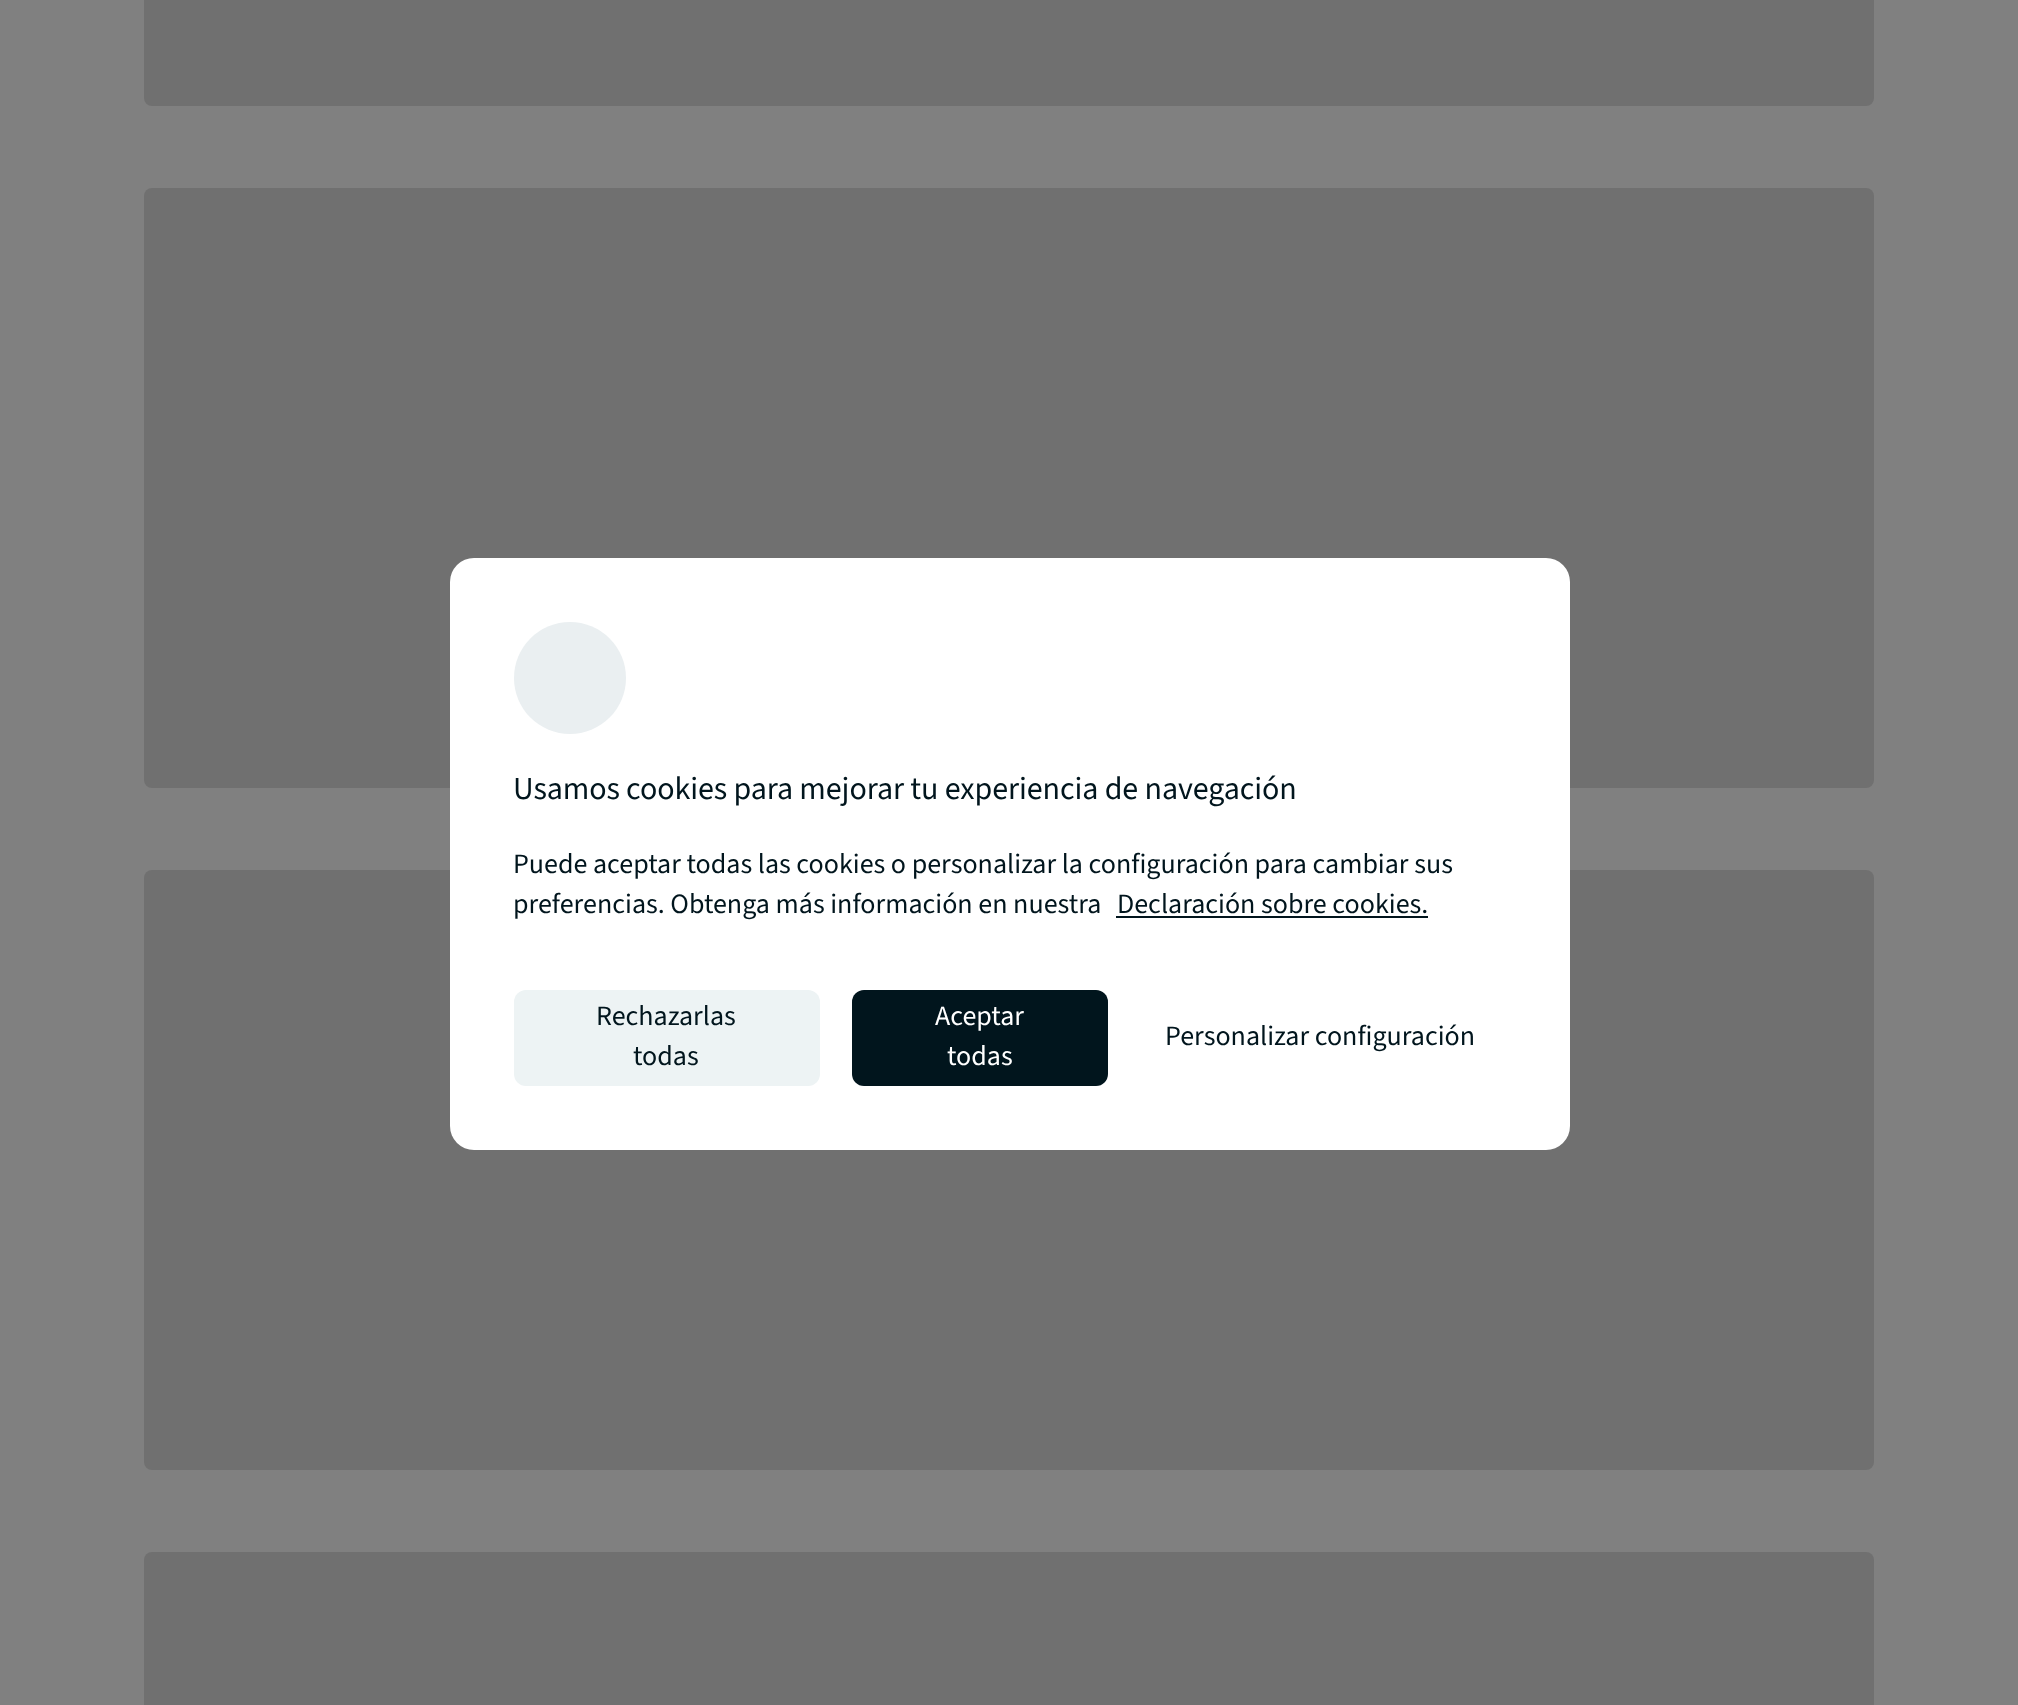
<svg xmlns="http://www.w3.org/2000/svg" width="2018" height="1705">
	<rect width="100%" height="100%" fill="#808080" />
	<rect x="144" y="-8" width="1730" height="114" rx="8" fill="#707070" />
	<rect x="144" y="188" width="1730" height="600" rx="8" fill="#707070" />
	<rect x="144" y="870" width="1730" height="600" rx="8" fill="#707070" />
	<rect x="144" y="1552" width="1730" height="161" rx="8" fill="#707070" />
	<rect x="450" y="558" width="1120" height="592" rx="24" fill="#FFFFFF" />
	<circle cx="570" cy="678" r="56" fill="#EAEFF1" />
	<text x="513" y="799" font-family="'Source Sans 3'" font-size="32" letter-spacing="-0.08" fill="#01151D">Usamos cookies para mejorar tu experiencia de navegación</text>
	<g font-family="'Source Sans 3'" font-size="28" fill="#01151D">
		<text x="513" y="873">Puede aceptar todas las cookies o personalizar la configuración para cambiar sus</text>
		<text x="513" y="913">preferencias. Obtenga más información en nuestra</text>
		<text x="1117" y="913">Declaración sobre cookies.</text>
	</g>
	<rect x="1116" y="916" width="312" height="2" fill="#01151D" />
	<rect x="514" y="990" width="306" height="96" rx="12" fill="#EDF3F4" />
	<g font-family="'Source Sans 3'" font-size="28" fill="#01151D">
		<text x="596" y="1025">Rechazarlas</text>
		<text x="633" y="1065">todas</text>
	</g>
	<rect x="852" y="990" width="256" height="96" rx="12" fill="#01151D" />
	<g font-family="'Source Sans 3'" font-size="28" fill="#FFFFFF">
		<text x="935" y="1025">Aceptar</text>
		<text x="947" y="1065">todas</text>
	</g>
	<text x="1165" y="1045" font-family="'Source Sans 3'" font-size="28" fill="#01151D">Personalizar configuración</text>
</svg>
